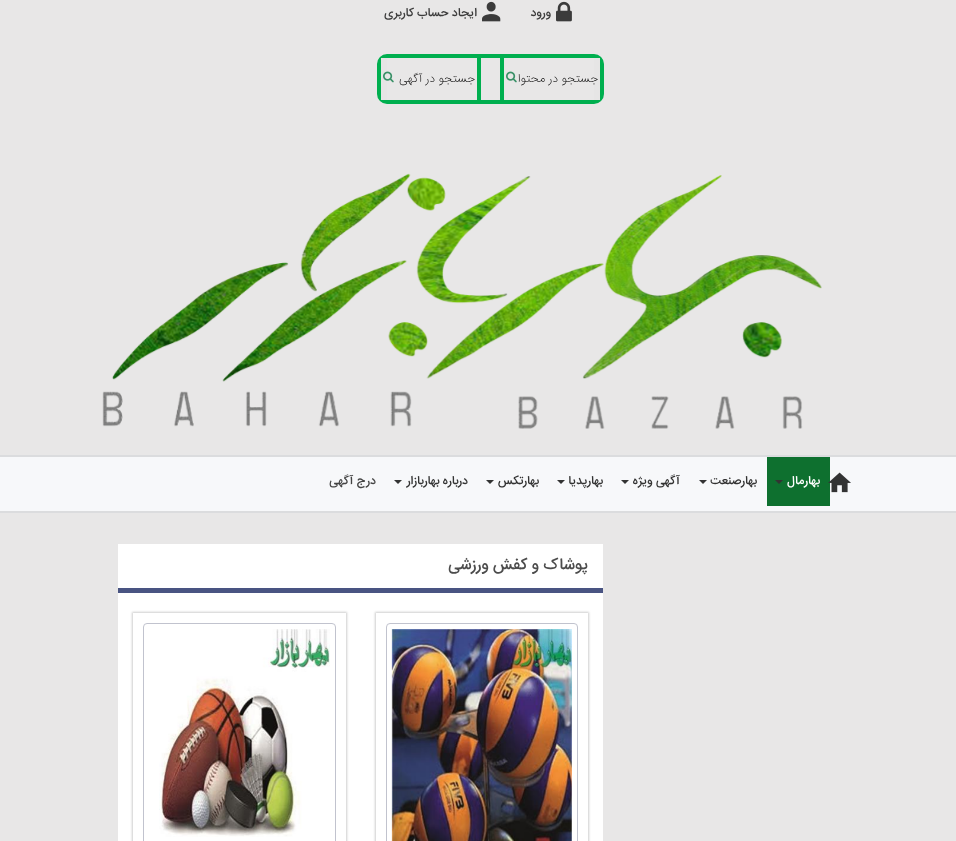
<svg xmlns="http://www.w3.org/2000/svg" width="956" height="841">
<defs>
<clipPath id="clip1"><path d="M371 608h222v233h-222zm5 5h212v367h-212z" clip-rule="evenodd"/></clipPath>
<clipPath id="clip2"><path d="M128 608h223v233h-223zm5 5h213v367h-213z" clip-rule="evenodd"/></clipPath>
</defs>
<rect width="100%" height="100%" fill="#e8e7e7"/>
<image x="556" y="1" width="16" height="21" href="media/1.png"/>
<text x="551" y="16" style="font-family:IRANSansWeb;font-size:12px;font-weight:500;direction:rtl;fill:#3b3b3b">ورود</text>
<image x="482" y="1" width="19" height="21" href="media/2.png"/>
<text x="477" y="16" style="font-family:IRANSansWeb;font-size:12px;font-weight:500;direction:rtl;fill:#3b3b3b">ایجاد حساب کاربری</text>
<rect x="379" y="56" width="223" height="46" rx="8" fill="none" stroke="#00af4f" stroke-width="4"/>
<rect x="594" y="58" width="6" height="42" fill="#e6e5e5"/>
<rect x="500" y="58" width="4" height="42" fill="#00af4f"/>
<text x="598" y="82" style="font-family:IRANSansWeb;font-size:12px;font-weight:200;direction:rtl;fill:#000">جستجو در محتوا</text>
<image x="506" y="71" width="11" height="12" href="media/3.png"/>
<rect x="381" y="58" width="6" height="42" fill="#e6e5e5"/>
<rect x="477" y="58" width="4" height="42" fill="#00af4f"/>
<text x="475" y="82" style="font-family:IRANSansWeb;font-size:12px;font-weight:200;direction:rtl;fill:#000">جستجو در آگهی</text>
<image x="383" y="71" width="11" height="12" href="media/3.png"/>
<image x="102" y="173" width="720" height="256" href="media/4.png"/>
<rect y="457" width="956" height="54" fill="#f7f8fa"/>
<rect y="455" width="956" height="2" fill="#dbdcde"/>
<rect y="511" width="956" height="2" fill="#dbdcde"/>
<rect x="767" y="457" width="63" height="49" fill="#0e702f"/>
<image x="828" y="472" width="23" height="21" href="media/5.png"/>
<text x="820" y="484" style="font-family:IRANSansWeb;font-size:12px;font-weight:500;direction:rtl;fill:#fff">بهارمال</text>
<path d="M775 480h8l-4 4z" fill="#333"/>
<text x="757" y="484" style="font-family:IRANSansWeb;font-size:12px;font-weight:500;direction:rtl;fill:#333">بهارصنعت</text>
<path d="M699 480h8l-4 4z" fill="#333"/>
<text x="680" y="484" style="font-family:IRANSansWeb;font-size:12px;font-weight:500;direction:rtl;fill:#333">آگهی ویژه</text>
<path d="M621 480h8l-4 4z" fill="#333"/>
<text x="603" y="484" style="font-family:IRANSansWeb;font-size:12px;font-weight:500;direction:rtl;fill:#333">بهارپدیا</text>
<path d="M557 480h8l-4 4z" fill="#333"/>
<text x="539" y="484" style="font-family:IRANSansWeb;font-size:12px;font-weight:500;direction:rtl;fill:#333">بهارتکس</text>
<path d="M486 480h8l-4 4z" fill="#333"/>
<text x="468" y="484" style="font-family:IRANSansWeb;font-size:12px;font-weight:500;direction:rtl;fill:#333">درباره بهاربازار</text>
<path d="M394 480h8l-4 4z" fill="#333"/>
<text x="376" y="484" style="font-family:IRANSansWeb;font-size:12px;font-weight:500;direction:rtl;fill:#444">درج آگهی</text>
<rect x="118" y="544" width="485" height="297" fill="#fff"/>
<rect x="118" y="588" width="485" height="5" fill="#495482"/>
<text x="588" y="569" style="font-family:IRANSansWeb;font-size:16px;font-weight:500;direction:rtl;fill:#4c4c4c">پوشاک و کفش ورزشی</text>
<g clip-path="url(#clip1)">
<rect x="375" y="612" width="214" height="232" fill="#cecece" filter="blur(1px)"/>
</g>
<rect x="386.5" y="623.5" width="191" height="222" rx="3.5" fill="none" stroke="#c1c3ce"/>
<image x="391" y="629" width="181" height="212" href="media/6.png"/>
<g clip-path="url(#clip2)">
<rect x="132" y="612" width="215" height="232" fill="#cecece" filter="blur(1px)"/>
</g>
<rect x="143.5" y="623.5" width="192" height="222" rx="3.5" fill="none" stroke="#c1c3ce"/>
<image x="159" y="629" width="171" height="208" href="media/7.png"/>
</svg>
